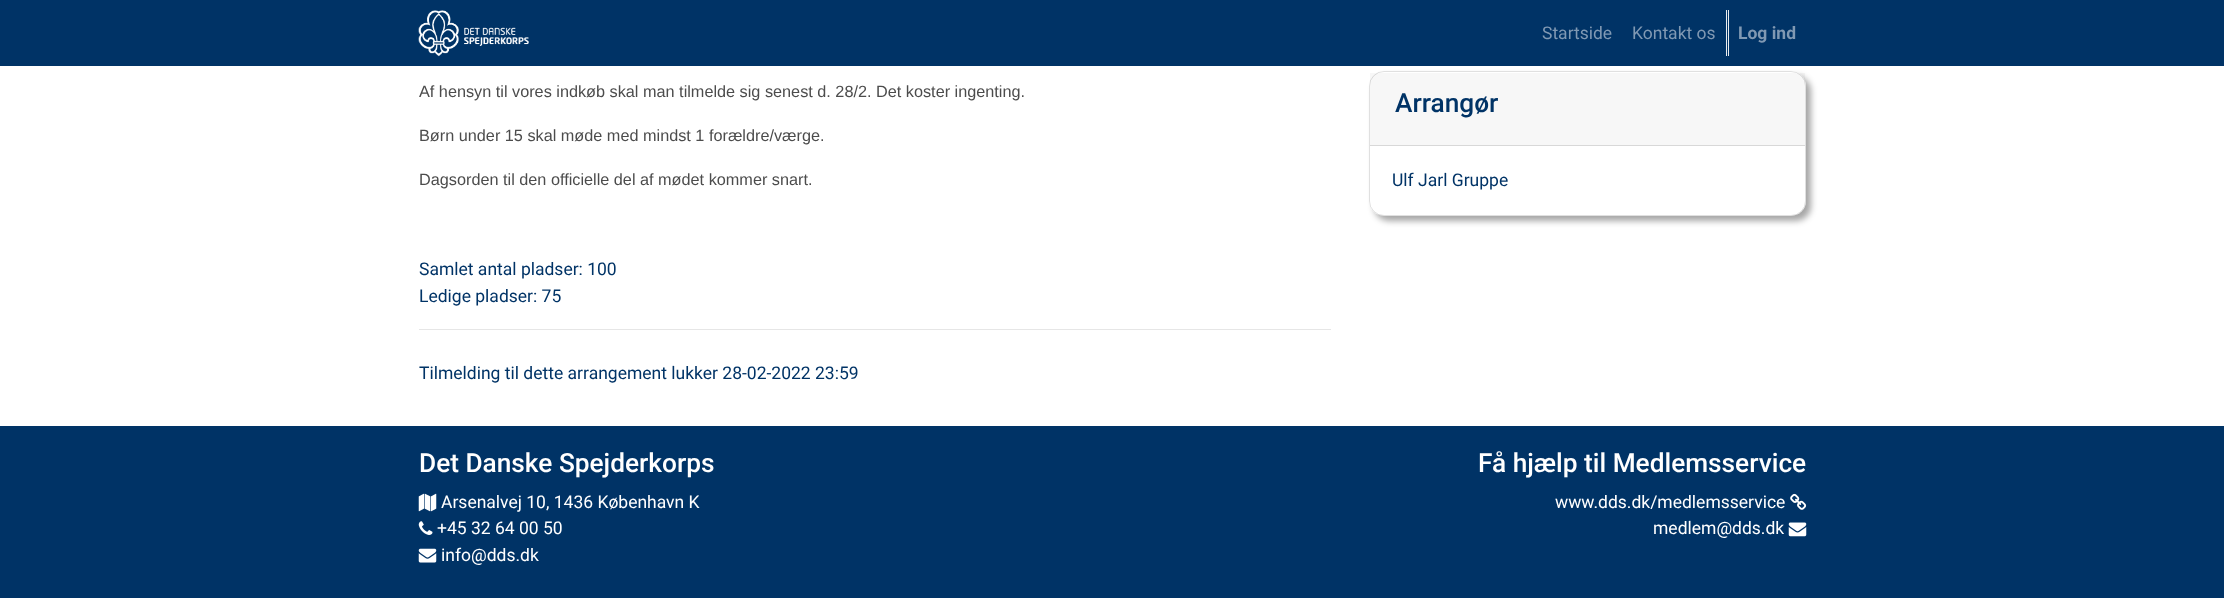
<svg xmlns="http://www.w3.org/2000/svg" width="2224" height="598">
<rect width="100%" height="100%" fill="#fff"/>
<rect width="2224" height="66" fill="#036"/>
<image x="418" y="10" width="111" height="47" href="media/1.png"/>
<text x="1542" y="39" style="font-family:Roboto;font-size:17.5px;fill:#8099b3">Startside</text>
<text x="1632" y="39" style="font-family:Roboto;font-size:17.5px;fill:#8099b3">Kontakt os</text>
<rect x="1726" y="10" width="1" height="46" fill="#e9ecef"/>
<rect x="1728" y="10" width="1" height="46" fill="#e9ecef"/>
<text x="1738" y="39" style="font-family:Roboto;font-size:17.5px;font-weight:bold;fill:#8099b3">Log ind</text>
<text x="419" y="97" style="font-family:Liberation Sans;font-size:16.25px;fill:#4c4c4c">Af hensyn til vores indkøb skal man tilmelde sig senest d. 28/2. Det koster ingenting.</text>
<text x="419" y="141" style="font-family:Liberation Sans;font-size:16.25px;fill:#4c4c4c">Børn under 15 skal møde med mindst 1 forældre/værge.</text>
<text x="419" y="185" style="font-family:Liberation Sans;font-size:16.25px;fill:#4c4c4c">Dagsorden til den officielle del af mødet kommer snart.</text>
<text x="419" y="275" style="font-family:Roboto;font-size:17.5px;fill:#036">Samlet antal pladser: 100</text>
<text x="419" y="302" style="font-family:Roboto;font-size:17.5px;fill:#036">Ledige pladser: 75</text>
<rect x="419" y="329" width="912" height="1" fill="#e6e6e6"/>
<text x="419" y="379" style="font-family:Roboto;font-size:17.5px;fill:#036">Tilmelding til dette arrangement lukker 28-02-2022 23:59</text>
<rect x="1374" y="76" width="437" height="145" rx="15" fill="#00000059" filter="blur(3px)"/>
<rect x="1369" y="71" width="437" height="145" rx="15" fill="#fff"/>
<rect x="1369.5" y="71.5" width="436" height="144" rx="14.5" fill="none" stroke="#0000001f"/>
<rect x="1370" y="73" width="435" height="72" fill="#00000008"/>
<rect x="1370" y="145" width="435" height="1" fill="#d8d8d8"/>
<text x="1395" y="112" style="font-family:Roboto;font-size:26.25px;font-weight:500;fill:#036">Arrangør</text>
<text x="1392" y="186" style="font-family:Roboto;font-size:17.5px;fill:#036">Ulf Jarl Gruppe</text>
<rect y="426" width="2224" height="172" fill="#036"/>
<text x="419" y="472" style="font-family:Roboto;font-size:26.25px;font-weight:500;fill:#fff">Det Danske Spejderkorps</text>
<image x="418" y="493" width="19" height="19" href="media/2.png"/>
<text x="441" y="508" style="font-family:Roboto;font-size:17.5px;fill:#fff">Arsenalvej 10, 1436 København K</text>
<image x="418" y="521" width="15" height="14" href="media/3.png"/>
<text x="437" y="534" style="font-family:Roboto;font-size:17.5px;fill:#fff">+45 32 64 00 50</text>
<image x="418" y="548" width="19" height="15" href="media/4.png"/>
<text x="441" y="561" style="font-family:Roboto;font-size:17.5px;fill:#fff">info@dds.dk</text>
<text x="1478" y="472" style="font-family:Roboto;font-size:26.25px;font-weight:500;fill:#fff">Få hjælp til Medlemsservice</text>
<text x="1555" y="508" style="font-family:Roboto;font-size:17.5px;fill:#fff">www.dds.dk/medlemsservice</text>
<image x="1790" y="493" width="17" height="17" href="media/5.png"/>
<text x="1653" y="534" style="font-family:Roboto;font-size:17.5px;fill:#fff">medlem@dds.dk</text>
<image x="1788" y="522" width="19" height="15" href="media/6.png"/>
</svg>
